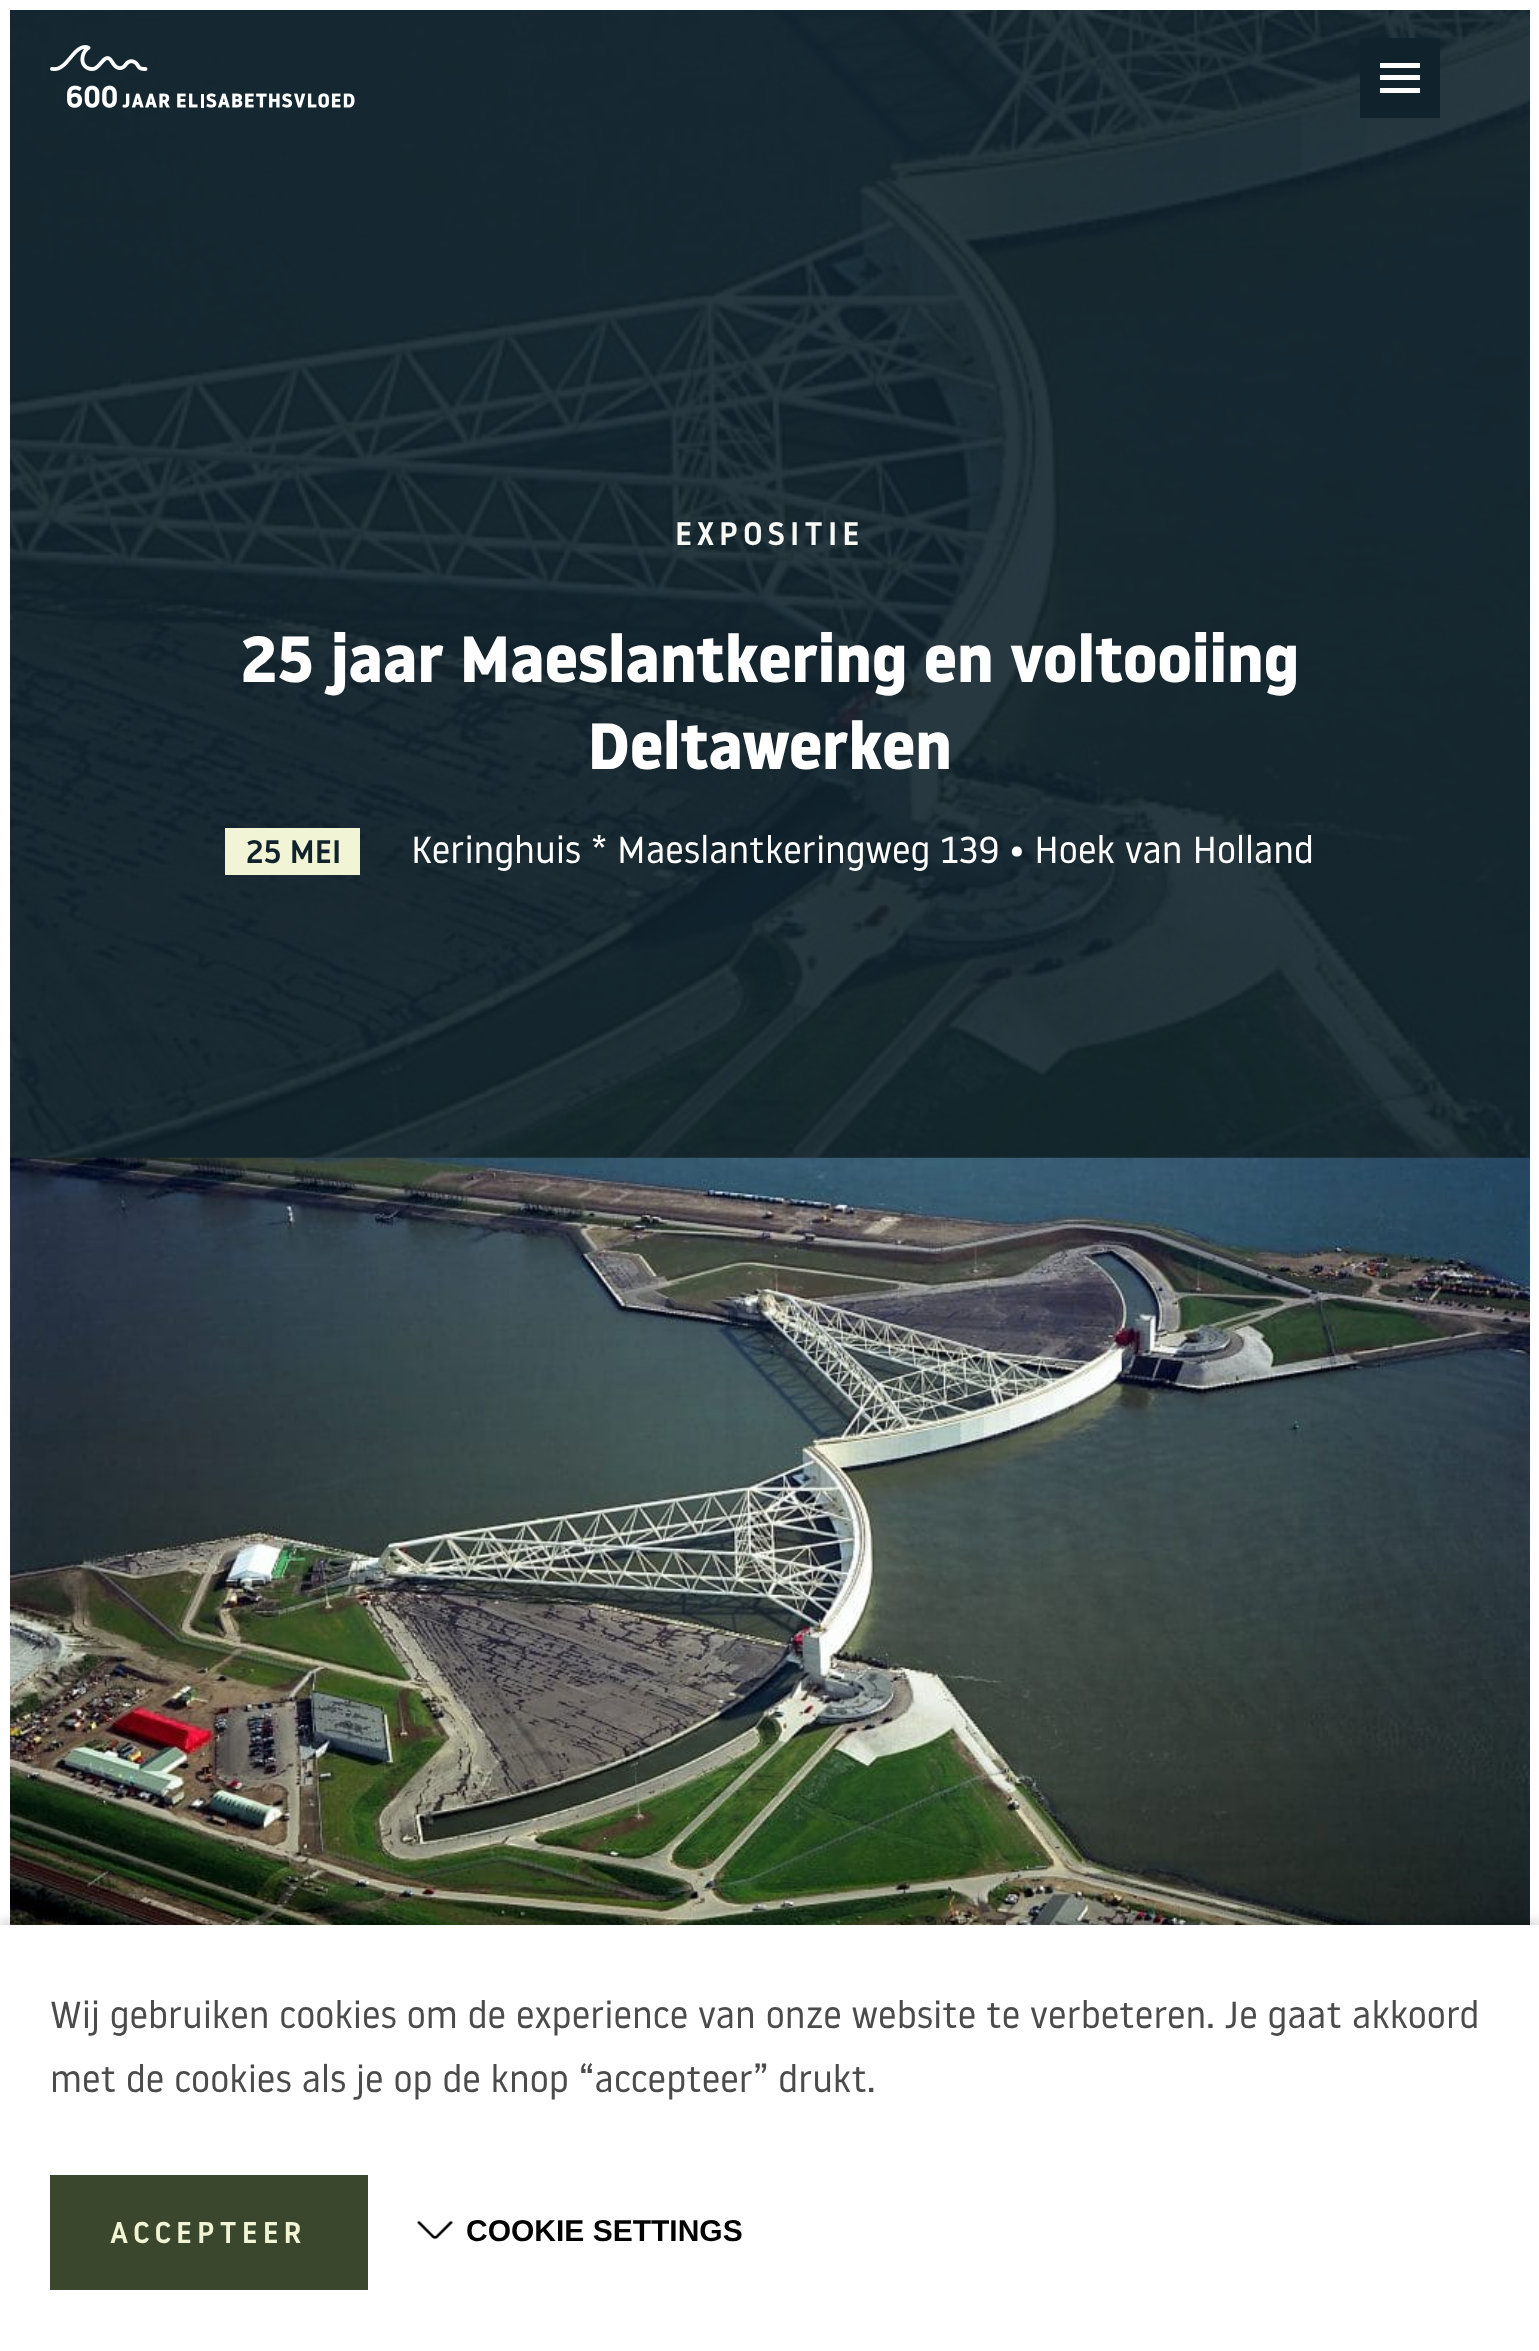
<svg xmlns="http://www.w3.org/2000/svg" width="1539" height="2351">
<rect width="100%" height="100%" fill="#fff"/>
<image x="10" y="10" width="1520" height="1148" href="media/2.png"/>
<image x="50" y="45" width="305" height="63" href="media/1.png"/>
<rect x="1360" y="38" width="80" height="80" fill="#10222c"/>
<rect x="1380" y="75" width="40" height="5" fill="#fff"/>
<rect x="1380" y="63" width="40" height="5" fill="#fff"/>
<rect x="1380" y="88" width="40" height="5" fill="#fff"/>
<text x="675" y="545" style="font-family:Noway;font-size:32.5px;font-weight:500;letter-spacing:5px;fill:#f7f9f4">EXPOSITIE</text>
<text x="241" y="682" style="font-family:Noway;font-size:65px;font-weight:bold;fill:#fff">25 jaar Maeslantkering en voltooiing</text>
<text x="588" y="769" style="font-family:Noway;font-size:65px;font-weight:bold;fill:#fff">Deltawerken</text>
<rect x="225" y="828" width="135" height="47" fill="#f1f5d5"/>
<text x="246" y="863" style="font-family:Noway;font-size:32.5px;font-weight:500;fill:#10222c">25 MEI</text>
<text x="411" y="863" style="font-family:Noway;font-size:37.5px;fill:#fff">Keringhuis * Maeslantkeringweg 139 • Hoek van Holland</text>
<image x="10" y="1157" width="1520" height="768" href="media/3.png"/>
<rect y="1920" width="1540" height="428" fill="#00000026" filter="blur(5px)"/>
<rect y="1925" width="1539" height="426" fill="#fff"/>
<text x="50" y="2028" style="font-family:Noway;font-size:37.5px;fill:#4b4b4b">Wij gebruiken cookies om de experience van onze website te verbeteren. Je gaat akkoord</text>
<text x="50" y="2092" style="font-family:Noway;font-size:37.5px;fill:#4b4b4b">met de cookies als je op de knop “accepteer” drukt.</text>
<rect x="50" y="2175" width="318" height="115" fill="#3a472d"/>
<text x="110" y="2243" style="font-family:Noway;font-size:30px;font-weight:500;letter-spacing:5px;fill:#f1f5d5">ACCEPTEER</text>
<image x="417" y="2221" width="36" height="18" href="media/4.png"/>
<text x="466" y="2241" style="font-family:Liberation Sans;font-size:30px;font-weight:bold;fill:#000">COOKIE SETTINGS</text>
</svg>
